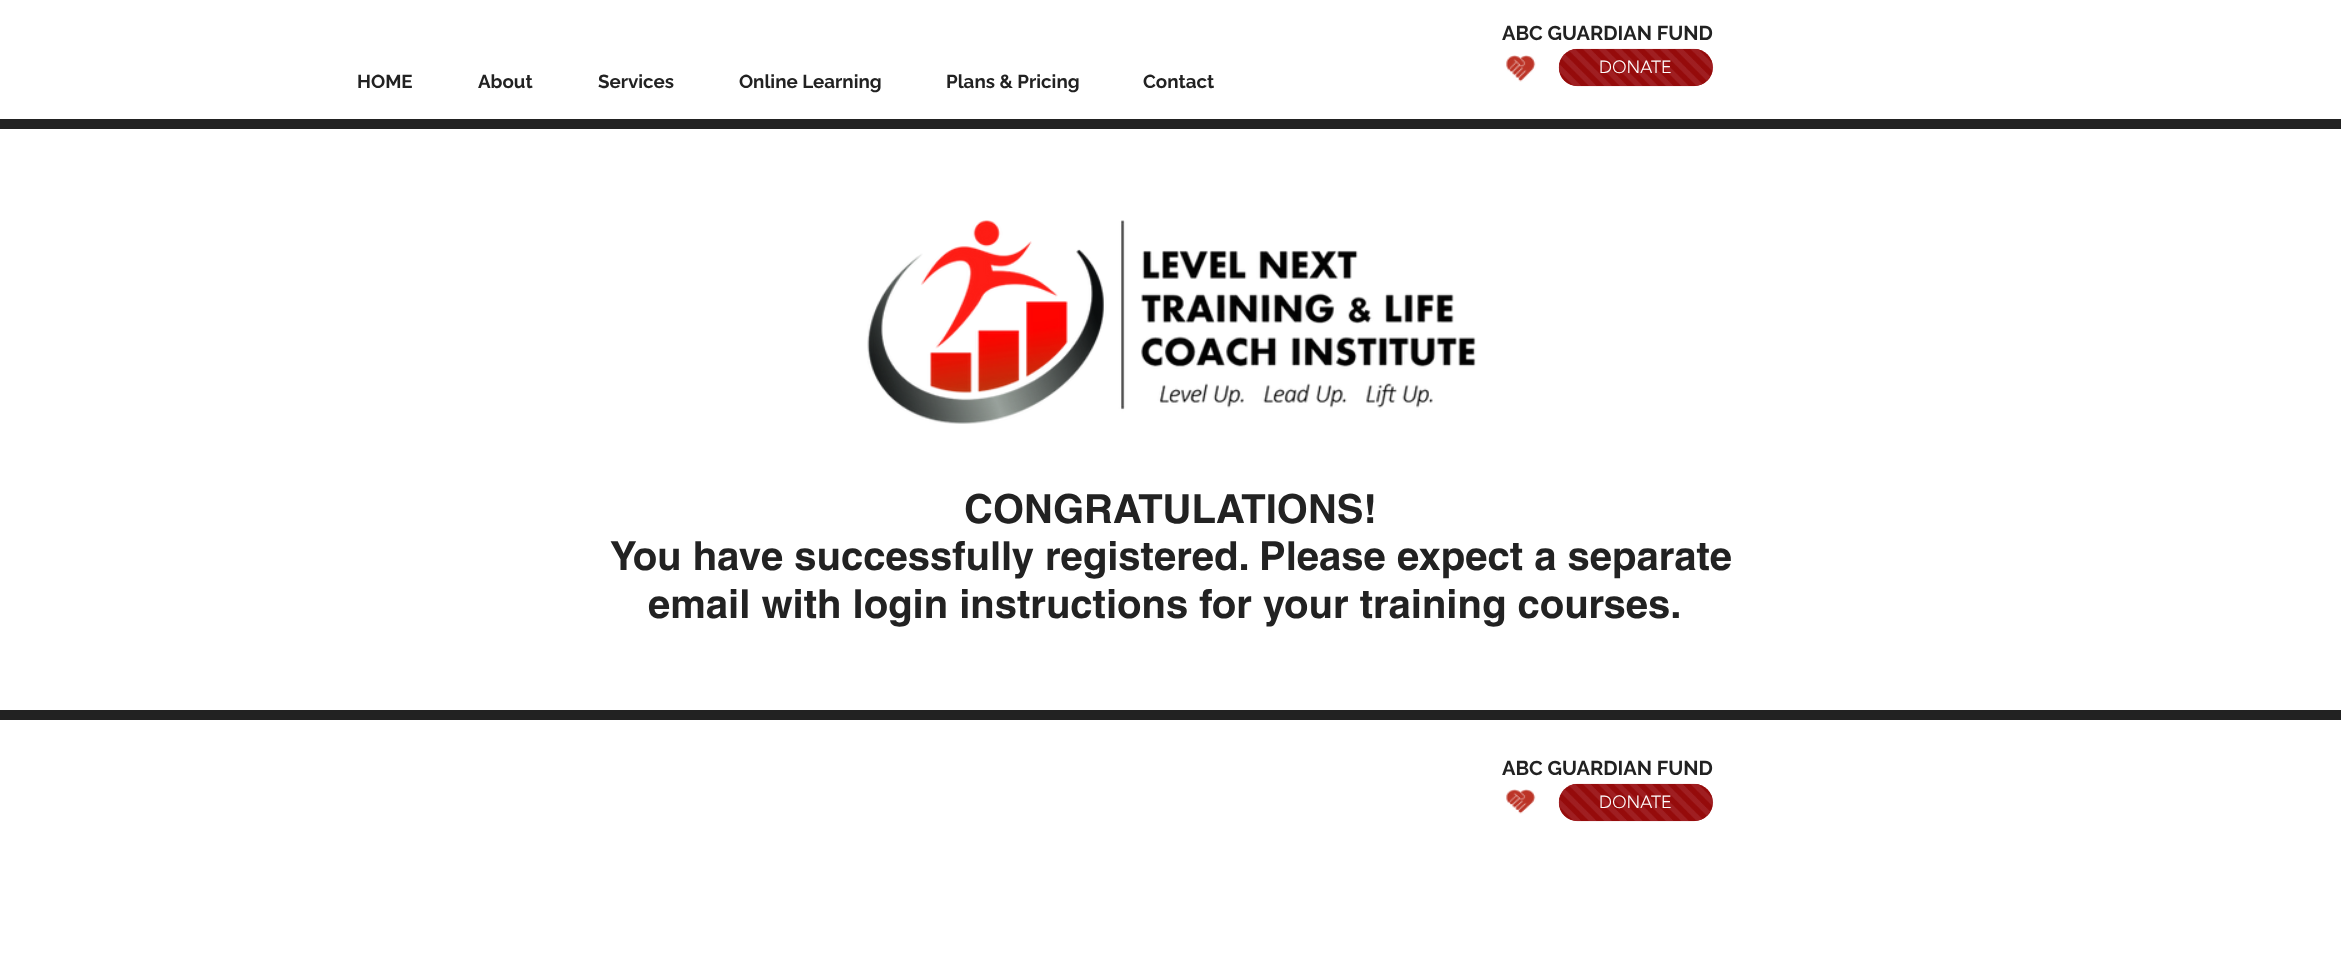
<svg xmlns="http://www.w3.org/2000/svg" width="2341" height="976">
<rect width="100%" height="100%" fill="#fff"/>
<text x="1502" y="40" style="font-family:Raleway;font-size:20px;font-weight:bold;fill:#222">ABC GUARDIAN FUND</text>
<image x="1506" y="55" width="30" height="27" href="media/1.png"/>
<rect x="1559" y="49" width="154" height="37" rx="18.5" fill="#950b0b"/>
<image x="1558" y="48" width="155" height="39" href="media/2.png"/>
<text x="1599" y="73" style="font-family:'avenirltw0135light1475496';font-size:17.5px;font-weight:300;fill:#fff">DONATE</text>
<text x="357" y="88" style="font-family:Raleway;font-size:18.75px;font-weight:bold;fill:#222">HOME</text>
<text x="478" y="88" style="font-family:Raleway;font-size:18.75px;font-weight:bold;fill:#222">About</text>
<text x="598" y="88" style="font-family:Raleway;font-size:18.75px;font-weight:bold;fill:#222">Services</text>
<text x="739" y="88" style="font-family:Raleway;font-size:18.75px;font-weight:bold;fill:#222">Online Learning</text>
<text x="946" y="88" style="font-family:Raleway;font-size:18.75px;font-weight:bold;fill:#222">Plans &amp; Pricing</text>
<text x="1143" y="88" style="font-family:Raleway;font-size:18.75px;font-weight:bold;fill:#222">Contact</text>
<rect y="119" width="2341" height="10" fill="#222"/>
<image x="867" y="220" width="609" height="204" href="media/3.png"/>
<text x="964" y="523" style="font-family:helvetica;font-size:40px;font-weight:bold;fill:#222">CONGRATULATIONS!</text>
<text x="610" y="570" style="font-family:helvetica;font-size:40px;font-weight:bold;fill:#222">You have successfully registered. Please expect a separate</text>
<text x="648" y="618" style="font-family:helvetica;font-size:40px;font-weight:bold;fill:#222">email with login instructions for your training courses.</text>
<rect y="710" width="2341" height="10" fill="#222"/>
<text x="1502" y="775" style="font-family:Raleway;font-size:20px;font-weight:bold;fill:#222">ABC GUARDIAN FUND</text>
<image x="1506" y="789" width="30" height="25" href="media/4.png"/>
<rect x="1559" y="784" width="154" height="37" rx="18.5" fill="#950b0b"/>
<image x="1558" y="783" width="155" height="39" href="media/2.png"/>
<text x="1599" y="808" style="font-family:'avenirltw0135light1475496';font-size:17.5px;font-weight:300;fill:#fff">DONATE</text>
</svg>
